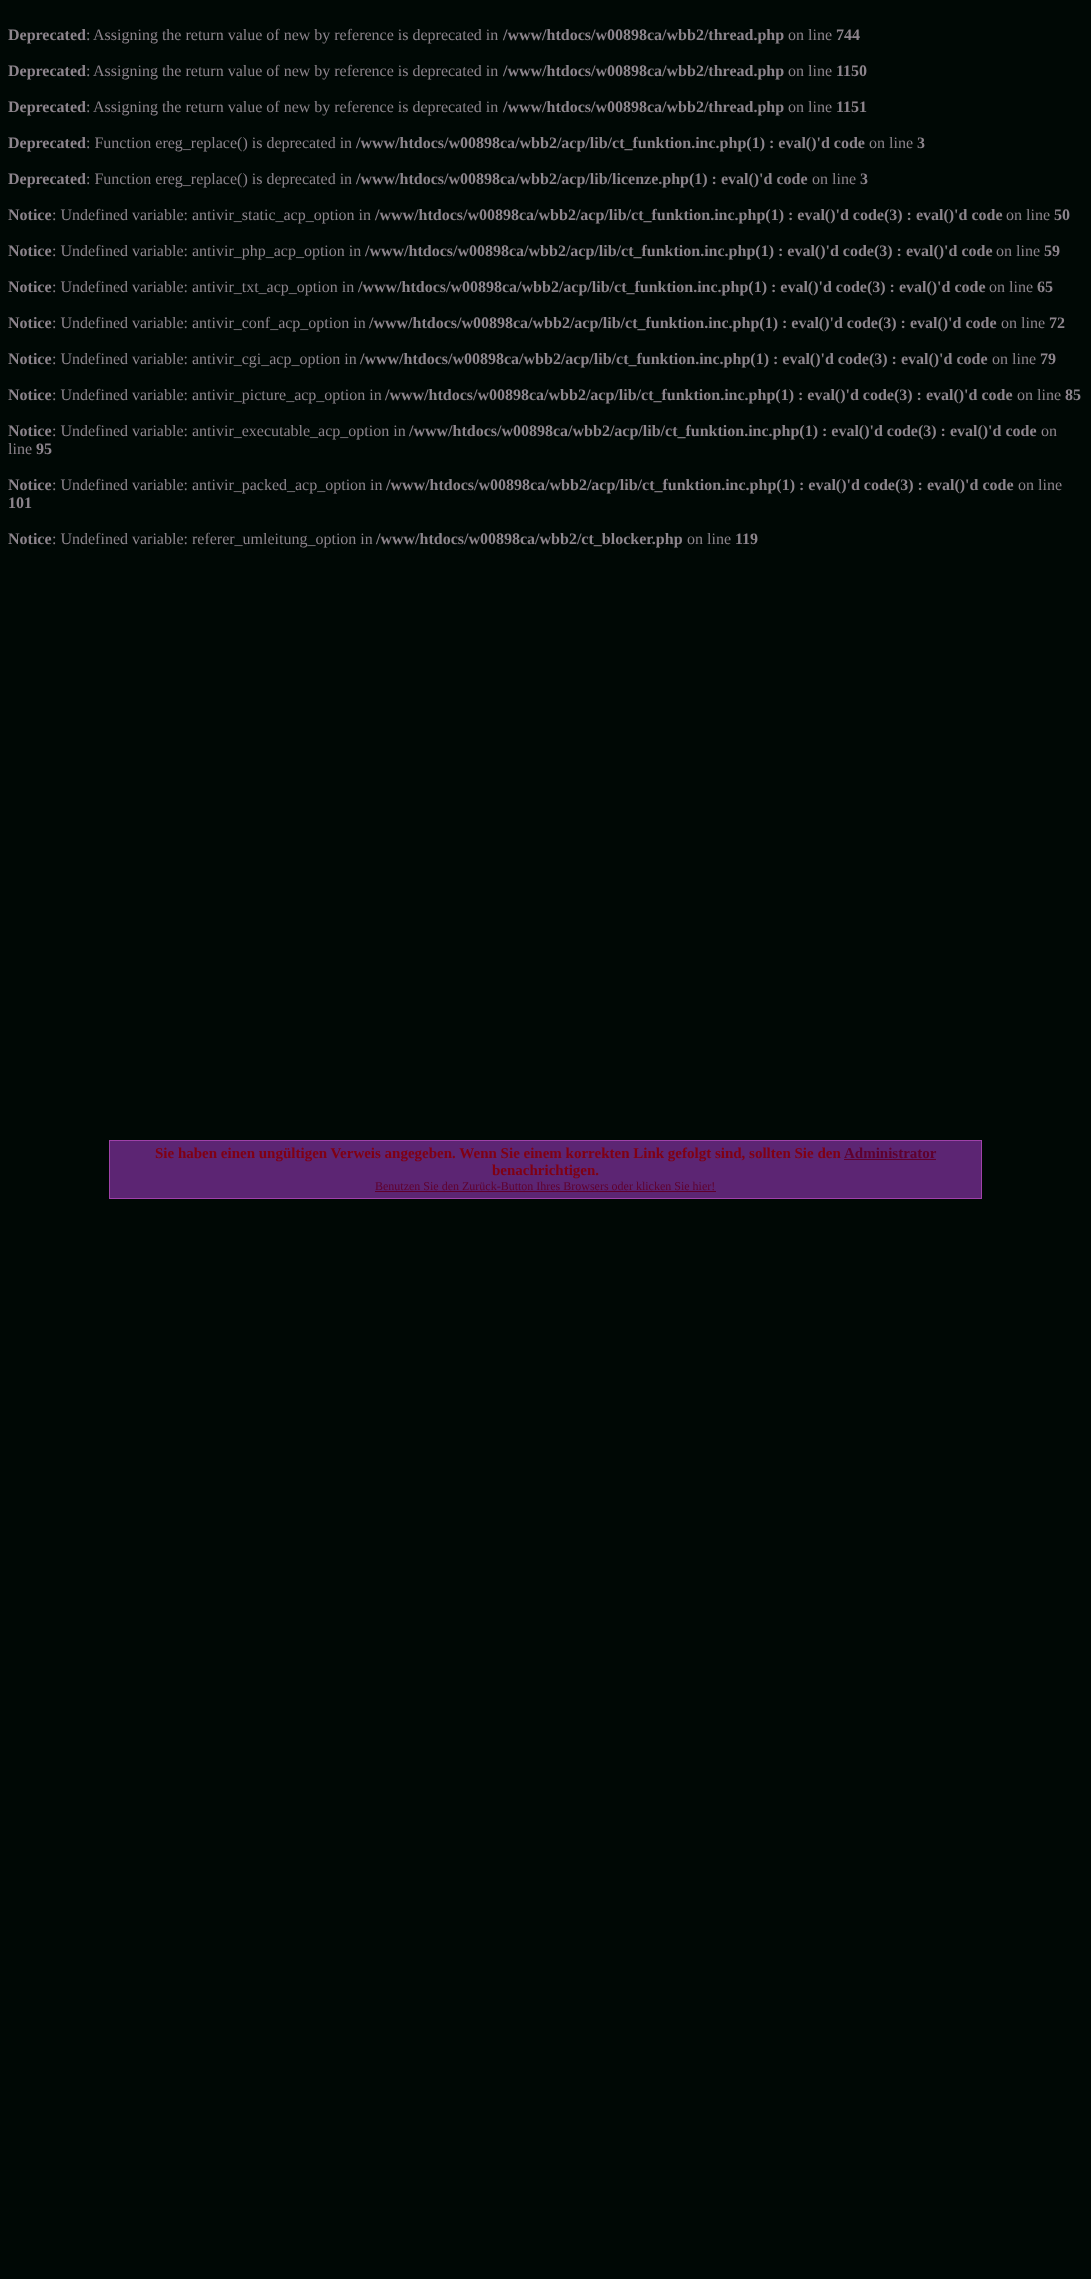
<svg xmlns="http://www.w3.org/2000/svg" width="1091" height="2279">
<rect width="100%" height="100%" fill="#000805"/>
<text x="8" y="40" style="font-family:Liberation Serif;font-size:16px;font-weight:bold;fill:#8c848c">Deprecated</text>
<text x="86" y="40" style="font-family:Liberation Serif;font-size:16px;fill:#8c848c">:</text>
<text x="93" y="40" style="font-family:Liberation Serif;font-size:16px;fill:#8c848c">Assigning the return value of new by reference is deprecated in</text>
<text x="503" y="40" style="font-family:Liberation Serif;font-size:16px;font-weight:bold;fill:#8c848c">/www/htdocs/w00898ca/wbb2/thread.php</text>
<text x="788" y="40" style="font-family:Liberation Serif;font-size:16px;fill:#8c848c">on line</text>
<text x="836" y="40" style="font-family:Liberation Serif;font-size:16px;font-weight:bold;fill:#8c848c">744</text>
<text x="8" y="76" style="font-family:Liberation Serif;font-size:16px;font-weight:bold;fill:#8c848c">Deprecated</text>
<text x="86" y="76" style="font-family:Liberation Serif;font-size:16px;fill:#8c848c">:</text>
<text x="93" y="76" style="font-family:Liberation Serif;font-size:16px;fill:#8c848c">Assigning the return value of new by reference is deprecated in</text>
<text x="503" y="76" style="font-family:Liberation Serif;font-size:16px;font-weight:bold;fill:#8c848c">/www/htdocs/w00898ca/wbb2/thread.php</text>
<text x="788" y="76" style="font-family:Liberation Serif;font-size:16px;fill:#8c848c">on line</text>
<text x="836" y="76" style="font-family:Liberation Serif;font-size:16px;font-weight:bold;fill:#8c848c">1150</text>
<text x="8" y="112" style="font-family:Liberation Serif;font-size:16px;font-weight:bold;fill:#8c848c">Deprecated</text>
<text x="86" y="112" style="font-family:Liberation Serif;font-size:16px;fill:#8c848c">:</text>
<text x="93" y="112" style="font-family:Liberation Serif;font-size:16px;fill:#8c848c">Assigning the return value of new by reference is deprecated in</text>
<text x="503" y="112" style="font-family:Liberation Serif;font-size:16px;font-weight:bold;fill:#8c848c">/www/htdocs/w00898ca/wbb2/thread.php</text>
<text x="788" y="112" style="font-family:Liberation Serif;font-size:16px;fill:#8c848c">on line</text>
<text x="836" y="112" style="font-family:Liberation Serif;font-size:16px;font-weight:bold;fill:#8c848c">1151</text>
<text x="8" y="148" style="font-family:Liberation Serif;font-size:16px;font-weight:bold;fill:#8c848c">Deprecated</text>
<text x="86" y="148" style="font-family:Liberation Serif;font-size:16px;fill:#8c848c">: Function ereg_replace() is deprecated in</text>
<text x="356" y="148" style="font-family:Liberation Serif;font-size:16px;font-weight:bold;fill:#8c848c">/www/htdocs/w00898ca/wbb2/acp/lib/ct_funktion.inc.php(1) : eval()'d code</text>
<text x="869" y="148" style="font-family:Liberation Serif;font-size:16px;fill:#8c848c">on line</text>
<text x="917" y="148" style="font-family:Liberation Serif;font-size:16px;font-weight:bold;fill:#8c848c">3</text>
<text x="8" y="184" style="font-family:Liberation Serif;font-size:16px;font-weight:bold;fill:#8c848c">Deprecated</text>
<text x="86" y="184" style="font-family:Liberation Serif;font-size:16px;fill:#8c848c">: Function ereg_replace() is deprecated in</text>
<text x="356" y="184" style="font-family:Liberation Serif;font-size:16px;font-weight:bold;fill:#8c848c">/www/htdocs/w00898ca/wbb2/acp/lib/licenze.php(1) : eval()'d code</text>
<text x="812" y="184" style="font-family:Liberation Serif;font-size:16px;fill:#8c848c">on line</text>
<text x="860" y="184" style="font-family:Liberation Serif;font-size:16px;font-weight:bold;fill:#8c848c">3</text>
<text x="8" y="220" style="font-family:Liberation Serif;font-size:16px;font-weight:bold;fill:#8c848c">Notice</text>
<text x="52" y="220" style="font-family:Liberation Serif;font-size:16px;fill:#8c848c">: Undefined variable: antivir_static_acp_option in</text>
<text x="375" y="220" style="font-family:Liberation Serif;font-size:16px;font-weight:bold;fill:#8c848c">/www/htdocs/w00898ca/wbb2/acp/lib/ct_funktion.inc.php(1) : eval()'d code(3) : eval()'d code</text>
<text x="1006" y="220" style="font-family:Liberation Serif;font-size:16px;fill:#8c848c">on line</text>
<text x="1054" y="220" style="font-family:Liberation Serif;font-size:16px;font-weight:bold;fill:#8c848c">50</text>
<text x="8" y="256" style="font-family:Liberation Serif;font-size:16px;font-weight:bold;fill:#8c848c">Notice</text>
<text x="52" y="256" style="font-family:Liberation Serif;font-size:16px;fill:#8c848c">: Undefined variable: antivir_php_acp_option in</text>
<text x="365" y="256" style="font-family:Liberation Serif;font-size:16px;font-weight:bold;fill:#8c848c">/www/htdocs/w00898ca/wbb2/acp/lib/ct_funktion.inc.php(1) : eval()'d code(3) : eval()'d code</text>
<text x="996" y="256" style="font-family:Liberation Serif;font-size:16px;fill:#8c848c">on line</text>
<text x="1044" y="256" style="font-family:Liberation Serif;font-size:16px;font-weight:bold;fill:#8c848c">59</text>
<text x="8" y="292" style="font-family:Liberation Serif;font-size:16px;font-weight:bold;fill:#8c848c">Notice</text>
<text x="52" y="292" style="font-family:Liberation Serif;font-size:16px;fill:#8c848c">: Undefined variable: antivir_txt_acp_option in</text>
<text x="358" y="292" style="font-family:Liberation Serif;font-size:16px;font-weight:bold;fill:#8c848c">/www/htdocs/w00898ca/wbb2/acp/lib/ct_funktion.inc.php(1) : eval()'d code(3) : eval()'d code</text>
<text x="989" y="292" style="font-family:Liberation Serif;font-size:16px;fill:#8c848c">on line</text>
<text x="1037" y="292" style="font-family:Liberation Serif;font-size:16px;font-weight:bold;fill:#8c848c">65</text>
<text x="8" y="328" style="font-family:Liberation Serif;font-size:16px;font-weight:bold;fill:#8c848c">Notice</text>
<text x="52" y="328" style="font-family:Liberation Serif;font-size:16px;fill:#8c848c">: Undefined variable: antivir_conf_acp_option in</text>
<text x="369" y="328" style="font-family:Liberation Serif;font-size:16px;font-weight:bold;fill:#8c848c">/www/htdocs/w00898ca/wbb2/acp/lib/ct_funktion.inc.php(1) : eval()'d code(3) : eval()'d code</text>
<text x="1001" y="328" style="font-family:Liberation Serif;font-size:16px;fill:#8c848c">on line</text>
<text x="1049" y="328" style="font-family:Liberation Serif;font-size:16px;font-weight:bold;fill:#8c848c">72</text>
<text x="8" y="364" style="font-family:Liberation Serif;font-size:16px;font-weight:bold;fill:#8c848c">Notice</text>
<text x="52" y="364" style="font-family:Liberation Serif;font-size:16px;fill:#8c848c">: Undefined variable: antivir_cgi_acp_option in</text>
<text x="360" y="364" style="font-family:Liberation Serif;font-size:16px;font-weight:bold;fill:#8c848c">/www/htdocs/w00898ca/wbb2/acp/lib/ct_funktion.inc.php(1) : eval()'d code(3) : eval()'d code</text>
<text x="992" y="364" style="font-family:Liberation Serif;font-size:16px;fill:#8c848c">on line</text>
<text x="1040" y="364" style="font-family:Liberation Serif;font-size:16px;font-weight:bold;fill:#8c848c">79</text>
<text x="8" y="400" style="font-family:Liberation Serif;font-size:16px;font-weight:bold;fill:#8c848c">Notice</text>
<text x="52" y="400" style="font-family:Liberation Serif;font-size:16px;fill:#8c848c">: Undefined variable: antivir_picture_acp_option in</text>
<text x="385" y="400" style="font-family:Liberation Serif;font-size:16px;font-weight:bold;fill:#8c848c">/www/htdocs/w00898ca/wbb2/acp/lib/ct_funktion.inc.php(1) : eval()'d code(3) : eval()'d code</text>
<text x="1017" y="400" style="font-family:Liberation Serif;font-size:16px;fill:#8c848c">on line</text>
<text x="1065" y="400" style="font-family:Liberation Serif;font-size:16px;font-weight:bold;fill:#8c848c">85</text>
<text x="8" y="436" style="font-family:Liberation Serif;font-size:16px;font-weight:bold;fill:#8c848c">Notice</text>
<text x="52" y="436" style="font-family:Liberation Serif;font-size:16px;fill:#8c848c">: Undefined variable: antivir_executable_acp_option in</text>
<text x="409" y="436" style="font-family:Liberation Serif;font-size:16px;font-weight:bold;fill:#8c848c">/www/htdocs/w00898ca/wbb2/acp/lib/ct_funktion.inc.php(1) : eval()'d code(3) : eval()'d code</text>
<text x="1041" y="436" style="font-family:Liberation Serif;font-size:16px;fill:#8c848c">on</text>
<text x="8" y="454" style="font-family:Liberation Serif;font-size:16px;fill:#8c848c">line</text>
<text x="36" y="454" style="font-family:Liberation Serif;font-size:16px;font-weight:bold;fill:#8c848c">95</text>
<text x="8" y="490" style="font-family:Liberation Serif;font-size:16px;font-weight:bold;fill:#8c848c">Notice</text>
<text x="52" y="490" style="font-family:Liberation Serif;font-size:16px;fill:#8c848c">: Undefined variable: antivir_packed_acp_option in</text>
<text x="386" y="490" style="font-family:Liberation Serif;font-size:16px;font-weight:bold;fill:#8c848c">/www/htdocs/w00898ca/wbb2/acp/lib/ct_funktion.inc.php(1) : eval()'d code(3) : eval()'d code</text>
<text x="1018" y="490" style="font-family:Liberation Serif;font-size:16px;fill:#8c848c">on line</text>
<text x="8" y="508" style="font-family:Liberation Serif;font-size:16px;font-weight:bold;fill:#8c848c">101</text>
<text x="8" y="544" style="font-family:Liberation Serif;font-size:16px;font-weight:bold;fill:#8c848c">Notice</text>
<text x="52" y="544" style="font-family:Liberation Serif;font-size:16px;fill:#8c848c">: Undefined variable: referer_umleitung_option in</text>
<text x="376" y="544" style="font-family:Liberation Serif;font-size:16px;font-weight:bold;fill:#8c848c">/www/htdocs/w00898ca/wbb2/ct_blocker.php</text>
<text x="687" y="544" style="font-family:Liberation Serif;font-size:16px;fill:#8c848c">on line</text>
<text x="735" y="544" style="font-family:Liberation Serif;font-size:16px;font-weight:bold;fill:#8c848c">119</text>
<rect x="109" y="1140" width="873" height="59" fill="#9f41a9"/>
<rect x="110" y="1141" width="871" height="57" fill="#5c2573"/>
<text x="155" y="1158" style="font-family:Liberation Serif;font-size:15px;font-weight:bold;fill:#810012">Sie haben einen ungültigen Verweis angegeben. Wenn Sie einem korrekten Link gefolgt sind, sollten Sie den</text>
<text x="844" y="1158" style="font-family:Liberation Serif;font-size:15px;font-weight:bold;fill:#5f002d">Administrator</text>
<rect x="844" y="1159" width="92" height="1" fill="#5f002d"/>
<text x="492" y="1175" style="font-family:Liberation Serif;font-size:15px;font-weight:bold;fill:#810012">benachrichtigen.</text>
<text x="375" y="1190" style="font-family:Liberation Serif;font-size:12px;fill:#5f002d">Benutzen Sie den Zurück-Button Ihres Browsers oder klicken Sie hier!</text>
<rect x="375" y="1191" width="341" height="1" fill="#5f002d"/>
</svg>
